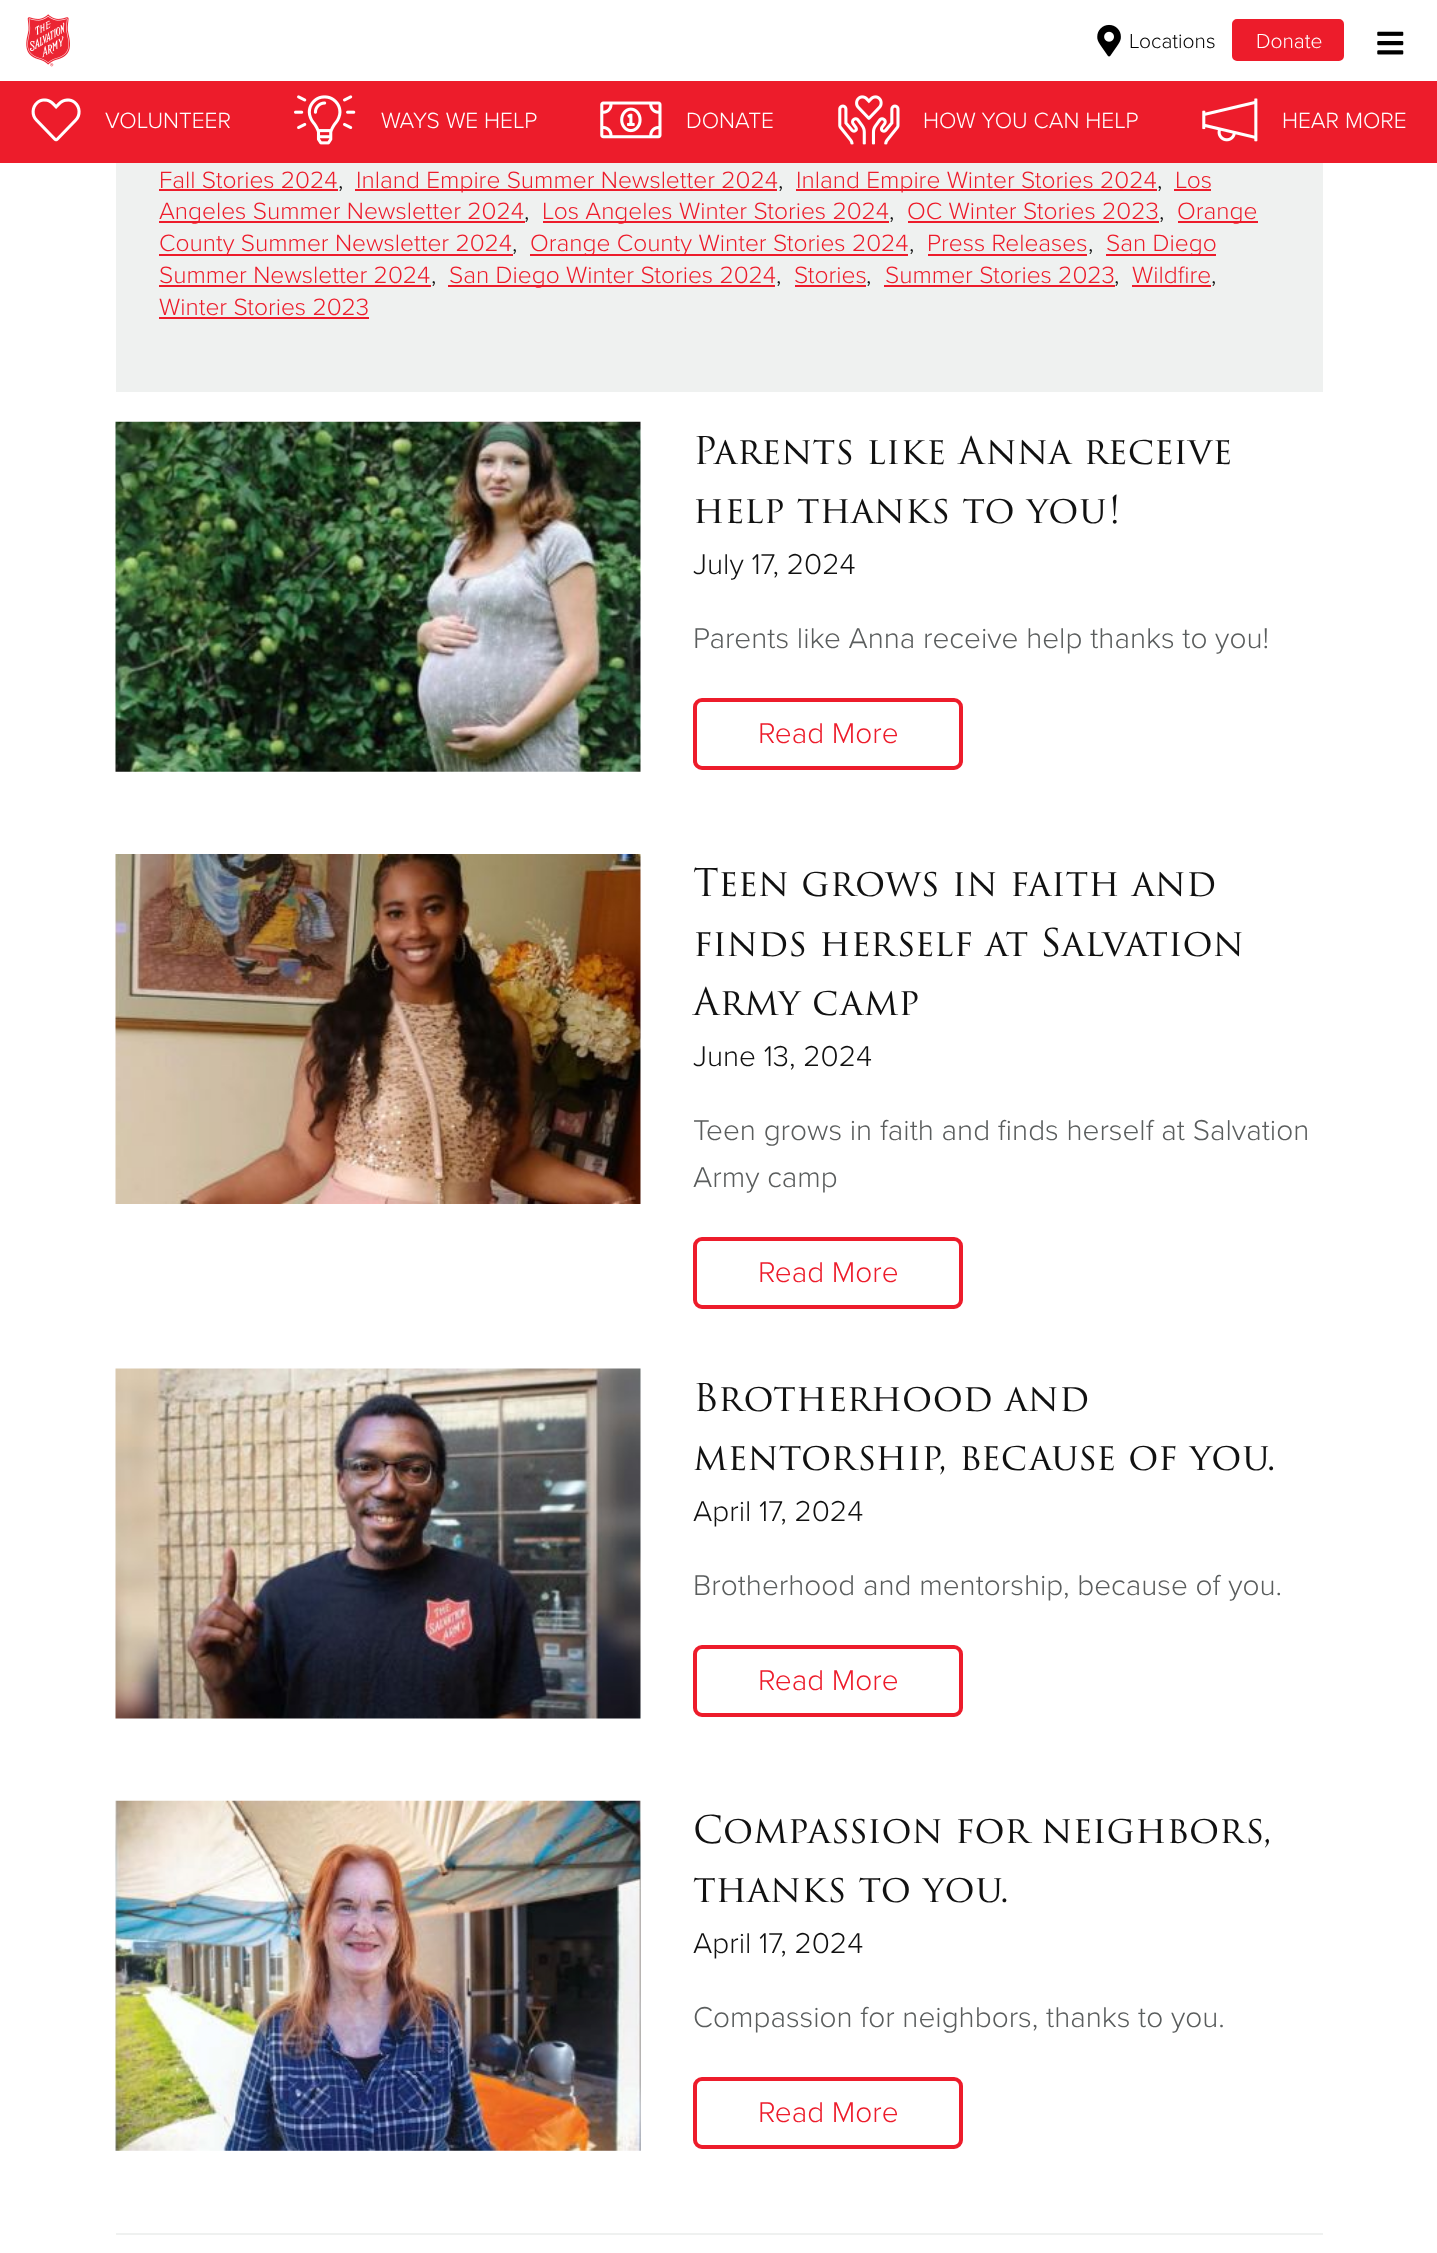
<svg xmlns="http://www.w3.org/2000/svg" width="1437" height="2253">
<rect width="100%" height="100%" fill="#fff"/>
<image x="26" y="14" width="44" height="53" href="media/1.png"/>
<image x="1097" y="24" width="24" height="33" href="media/2.png"/>
<text x="1129" y="48" style="font-family:Proxima Nova;font-size:21px;font-weight:300;fill:#000">Locations</text>
<rect x="1233" y="20" width="110" height="40" rx="4" fill="#ed1c2b" stroke="#ed1c2b" stroke-width="2"/>
<text x="1256" y="48" style="font-family:Proxima Nova;font-size:21px;font-weight:300;fill:#fff">Donate</text>
<image x="1377" y="31" width="27" height="24" href="media/3.png"/>
<rect y="81" width="1437" height="82" fill="#ed1c2b"/>
<image x="31" y="98" width="50" height="44" href="media/4.png"/>
<text x="105" y="128" style="font-family:Proxima Nova;font-size:22.75px;font-weight:300;fill:#fff">VOLUNTEER</text>
<image x="294" y="95" width="62" height="50" href="media/5.png"/>
<text x="381" y="128" style="font-family:Proxima Nova;font-size:22.75px;font-weight:300;fill:#fff">WAYS WE HELP</text>
<image x="600" y="101" width="62" height="38" href="media/6.png"/>
<text x="686" y="128" style="font-family:Proxima Nova;font-size:22.75px;font-weight:300;fill:#fff">DONATE</text>
<image x="838" y="95" width="62" height="50" href="media/7.png"/>
<text x="923" y="128" style="font-family:Proxima Nova;font-size:22.75px;font-weight:300;fill:#fff">HOW YOU CAN HELP</text>
<image x="1202" y="98" width="56" height="44" href="media/8.png"/>
<text x="1282" y="128" style="font-family:Proxima Nova;font-size:22.75px;font-weight:300;fill:#fff">HEAR MORE</text>
<rect x="116" y="163" width="1207" height="229" fill="#eff1f0"/>
<text x="159" y="188" style="font-family:Proxima Nova;font-size:24.5px;font-weight:300;fill:#ed1c2b">Fall Stories 2024</text>
<rect x="159" y="189" width="179" height="2" fill="#ed1c2b"/>
<text x="338" y="188" style="font-family:Proxima Nova;font-size:24.5px;font-weight:300;fill:#111">,</text>
<rect x="355" y="189" width="422" height="2" fill="#ed1c2b"/>
<text x="356" y="188" style="font-family:Proxima Nova;font-size:24.5px;font-weight:300;fill:#ed1c2b">Inland Empire Summer Newsletter 2024</text>
<text x="778" y="188" style="font-family:Proxima Nova;font-size:24.5px;font-weight:300;fill:#111">,</text>
<rect x="796" y="189" width="361" height="2" fill="#ed1c2b"/>
<text x="796" y="188" style="font-family:Proxima Nova;font-size:24.5px;font-weight:300;fill:#ed1c2b">Inland Empire Winter Stories 2024</text>
<text x="1157" y="188" style="font-family:Proxima Nova;font-size:24.5px;font-weight:300;fill:#111">,</text>
<text x="1175" y="188" style="font-family:Proxima Nova;font-size:24.5px;font-weight:300;fill:#ed1c2b">Los</text>
<rect x="1174" y="189" width="37" height="2" fill="#ed1c2b"/>
<rect x="159" y="221" width="366" height="2" fill="#ed1c2b"/>
<text x="159" y="219" style="font-family:Proxima Nova;font-size:24.5px;font-weight:300;fill:#ed1c2b">Angeles Summer Newsletter 2024</text>
<text x="524" y="219" style="font-family:Proxima Nova;font-size:24.5px;font-weight:300;fill:#111">,</text>
<rect x="543" y="221" width="346" height="2" fill="#ed1c2b"/>
<text x="542" y="219" style="font-family:Proxima Nova;font-size:24.5px;font-weight:300;fill:#ed1c2b">Los Angeles Winter Stories 2024</text>
<text x="889" y="219" style="font-family:Proxima Nova;font-size:24.5px;font-weight:300;fill:#111">,</text>
<text x="907" y="219" style="font-family:Proxima Nova;font-size:24.5px;font-weight:300;fill:#ed1c2b">OC Winter Stories 2023</text>
<rect x="908" y="221" width="251" height="2" fill="#ed1c2b"/>
<text x="1159" y="219" style="font-family:Proxima Nova;font-size:24.5px;font-weight:300;fill:#111">,</text>
<rect x="1178" y="221" width="80" height="2" fill="#ed1c2b"/>
<text x="1177" y="219" style="font-family:Proxima Nova;font-size:24.5px;font-weight:300;fill:#ed1c2b">Orange</text>
<rect x="159" y="254" width="354" height="2" fill="#ed1c2b"/>
<text x="159" y="251" style="font-family:Proxima Nova;font-size:24.5px;font-weight:300;fill:#ed1c2b">County Summer Newsletter 2024</text>
<text x="512" y="251" style="font-family:Proxima Nova;font-size:24.5px;font-weight:300;fill:#111">,</text>
<rect x="530" y="254" width="378" height="2" fill="#ed1c2b"/>
<text x="530" y="251" style="font-family:Proxima Nova;font-size:24.5px;font-weight:300;fill:#ed1c2b">Orange County Winter Stories 2024</text>
<text x="909" y="251" style="font-family:Proxima Nova;font-size:24.5px;font-weight:300;fill:#111">,</text>
<text x="927" y="251" style="font-family:Proxima Nova;font-size:24.5px;font-weight:300;fill:#ed1c2b">Press Releases</text>
<rect x="928" y="254" width="159" height="2" fill="#ed1c2b"/>
<text x="1088" y="251" style="font-family:Proxima Nova;font-size:24.5px;font-weight:300;fill:#111">,</text>
<rect x="1106" y="254" width="110" height="2" fill="#ed1c2b"/>
<text x="1106" y="251" style="font-family:Proxima Nova;font-size:24.5px;font-weight:300;fill:#ed1c2b">San Diego</text>
<text x="159" y="283" style="font-family:Proxima Nova;font-size:24.5px;font-weight:300;fill:#ed1c2b">Summer Newsletter 2024</text>
<rect x="159" y="285" width="272" height="2" fill="#ed1c2b"/>
<text x="431" y="283" style="font-family:Proxima Nova;font-size:24.5px;font-weight:300;fill:#111">,</text>
<rect x="448" y="285" width="327" height="2" fill="#ed1c2b"/>
<text x="449" y="283" style="font-family:Proxima Nova;font-size:24.5px;font-weight:300;fill:#ed1c2b">San Diego Winter Stories 2024</text>
<text x="776" y="283" style="font-family:Proxima Nova;font-size:24.5px;font-weight:300;fill:#111">,</text>
<text x="794" y="283" style="font-family:Proxima Nova;font-size:24.5px;font-weight:300;fill:#ed1c2b">Stories</text>
<rect x="795" y="285" width="71" height="2" fill="#ed1c2b"/>
<text x="866" y="283" style="font-family:Proxima Nova;font-size:24.5px;font-weight:300;fill:#111">,</text>
<text x="885" y="283" style="font-family:Proxima Nova;font-size:24.5px;font-weight:300;fill:#ed1c2b">Summer Stories 2023</text>
<rect x="884" y="285" width="231" height="2" fill="#ed1c2b"/>
<text x="1114" y="283" style="font-family:Proxima Nova;font-size:24.5px;font-weight:300;fill:#111">,</text>
<text x="1132" y="283" style="font-family:Proxima Nova;font-size:24.5px;font-weight:300;fill:#ed1c2b">Wildfire</text>
<rect x="1132" y="285" width="79" height="2" fill="#ed1c2b"/>
<text x="1211" y="283" style="font-family:Proxima Nova;font-size:24.5px;font-weight:300;fill:#111">,</text>
<text x="159" y="315" style="font-family:Proxima Nova;font-size:24.5px;font-weight:300;fill:#ed1c2b">Winter Stories 2023</text>
<rect x="159" y="317" width="210" height="2" fill="#ed1c2b"/>
<image x="115" y="421" width="526" height="351" href="media/9.png"/>
<text x="693" y="464" style="font-family:'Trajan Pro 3';font-size:37.25px;fill:#111">Parents like Anna receive</text>
<text x="693" y="523" style="font-family:'Trajan Pro 3';font-size:37.25px;fill:#111">help thanks to you!</text>
<text x="693" y="574" style="font-family:Proxima Nova;font-size:29.75px;font-weight:300;fill:#111">July 17, 2024</text>
<text x="693" y="648" style="font-family:Proxima Nova;font-size:29.75px;font-weight:300;fill:#5a5d5d">Parents like Anna receive help thanks to you!</text>
<rect x="695" y="700" width="266" height="68" rx="7" fill="none" stroke="#ed1c2b" stroke-width="4"/>
<text x="758" y="743" style="font-family:Proxima Nova;font-size:29.75px;font-weight:300;fill:#ed1c2b">Read More</text>
<image x="115" y="854" width="526" height="350" href="media/10.png"/>
<text x="693" y="896" style="font-family:'Trajan Pro 3';font-size:37.25px;fill:#111">Teen grows in faith and</text>
<text x="693" y="956" style="font-family:'Trajan Pro 3';font-size:37.25px;fill:#111">finds herself at Salvation</text>
<text x="693" y="1015" style="font-family:'Trajan Pro 3';font-size:37.25px;fill:#111">Army camp</text>
<text x="693" y="1066" style="font-family:Proxima Nova;font-size:29.75px;font-weight:300;fill:#111">June 13, 2024</text>
<text x="693" y="1140" style="font-family:Proxima Nova;font-size:29.75px;font-weight:300;fill:#5a5d5d">Teen grows in faith and finds herself at Salvation</text>
<text x="693" y="1187" style="font-family:Proxima Nova;font-size:29.75px;font-weight:300;fill:#5a5d5d">Army camp</text>
<rect x="695" y="1239" width="266" height="68" rx="7" fill="none" stroke="#ed1c2b" stroke-width="4"/>
<text x="758" y="1282" style="font-family:Proxima Nova;font-size:29.75px;font-weight:300;fill:#ed1c2b">Read More</text>
<image x="115" y="1368" width="526" height="351" href="media/11.png"/>
<text x="693" y="1411" style="font-family:'Trajan Pro 3';font-size:37.25px;fill:#111">Brotherhood and</text>
<text x="693" y="1470" style="font-family:'Trajan Pro 3';font-size:37.25px;fill:#111">mentorship, because of you.</text>
<text x="693" y="1521" style="font-family:Proxima Nova;font-size:29.75px;font-weight:300;fill:#111">April 17, 2024</text>
<text x="693" y="1595" style="font-family:Proxima Nova;font-size:29.75px;font-weight:300;fill:#5a5d5d">Brotherhood and mentorship, because of you.</text>
<rect x="695" y="1647" width="266" height="68" rx="7" fill="none" stroke="#ed1c2b" stroke-width="4"/>
<text x="758" y="1690" style="font-family:Proxima Nova;font-size:29.75px;font-weight:300;fill:#ed1c2b">Read More</text>
<image x="115" y="1800" width="526" height="351" href="media/12.png"/>
<text x="693" y="1843" style="font-family:'Trajan Pro 3';font-size:37.25px;fill:#111">Compassion for neighbors,</text>
<text x="693" y="1902" style="font-family:'Trajan Pro 3';font-size:37.25px;fill:#111">thanks to you.</text>
<text x="693" y="1953" style="font-family:Proxima Nova;font-size:29.75px;font-weight:300;fill:#111">April 17, 2024</text>
<text x="693" y="2027" style="font-family:Proxima Nova;font-size:29.75px;font-weight:300;fill:#5a5d5d">Compassion for neighbors, thanks to you.</text>
<rect x="695" y="2079" width="266" height="68" rx="7" fill="none" stroke="#ed1c2b" stroke-width="4"/>
<text x="758" y="2122" style="font-family:Proxima Nova;font-size:29.75px;font-weight:300;fill:#ed1c2b">Read More</text>
<rect x="116" y="2233" width="1207" height="2" fill="#eff1f0"/>
</svg>
